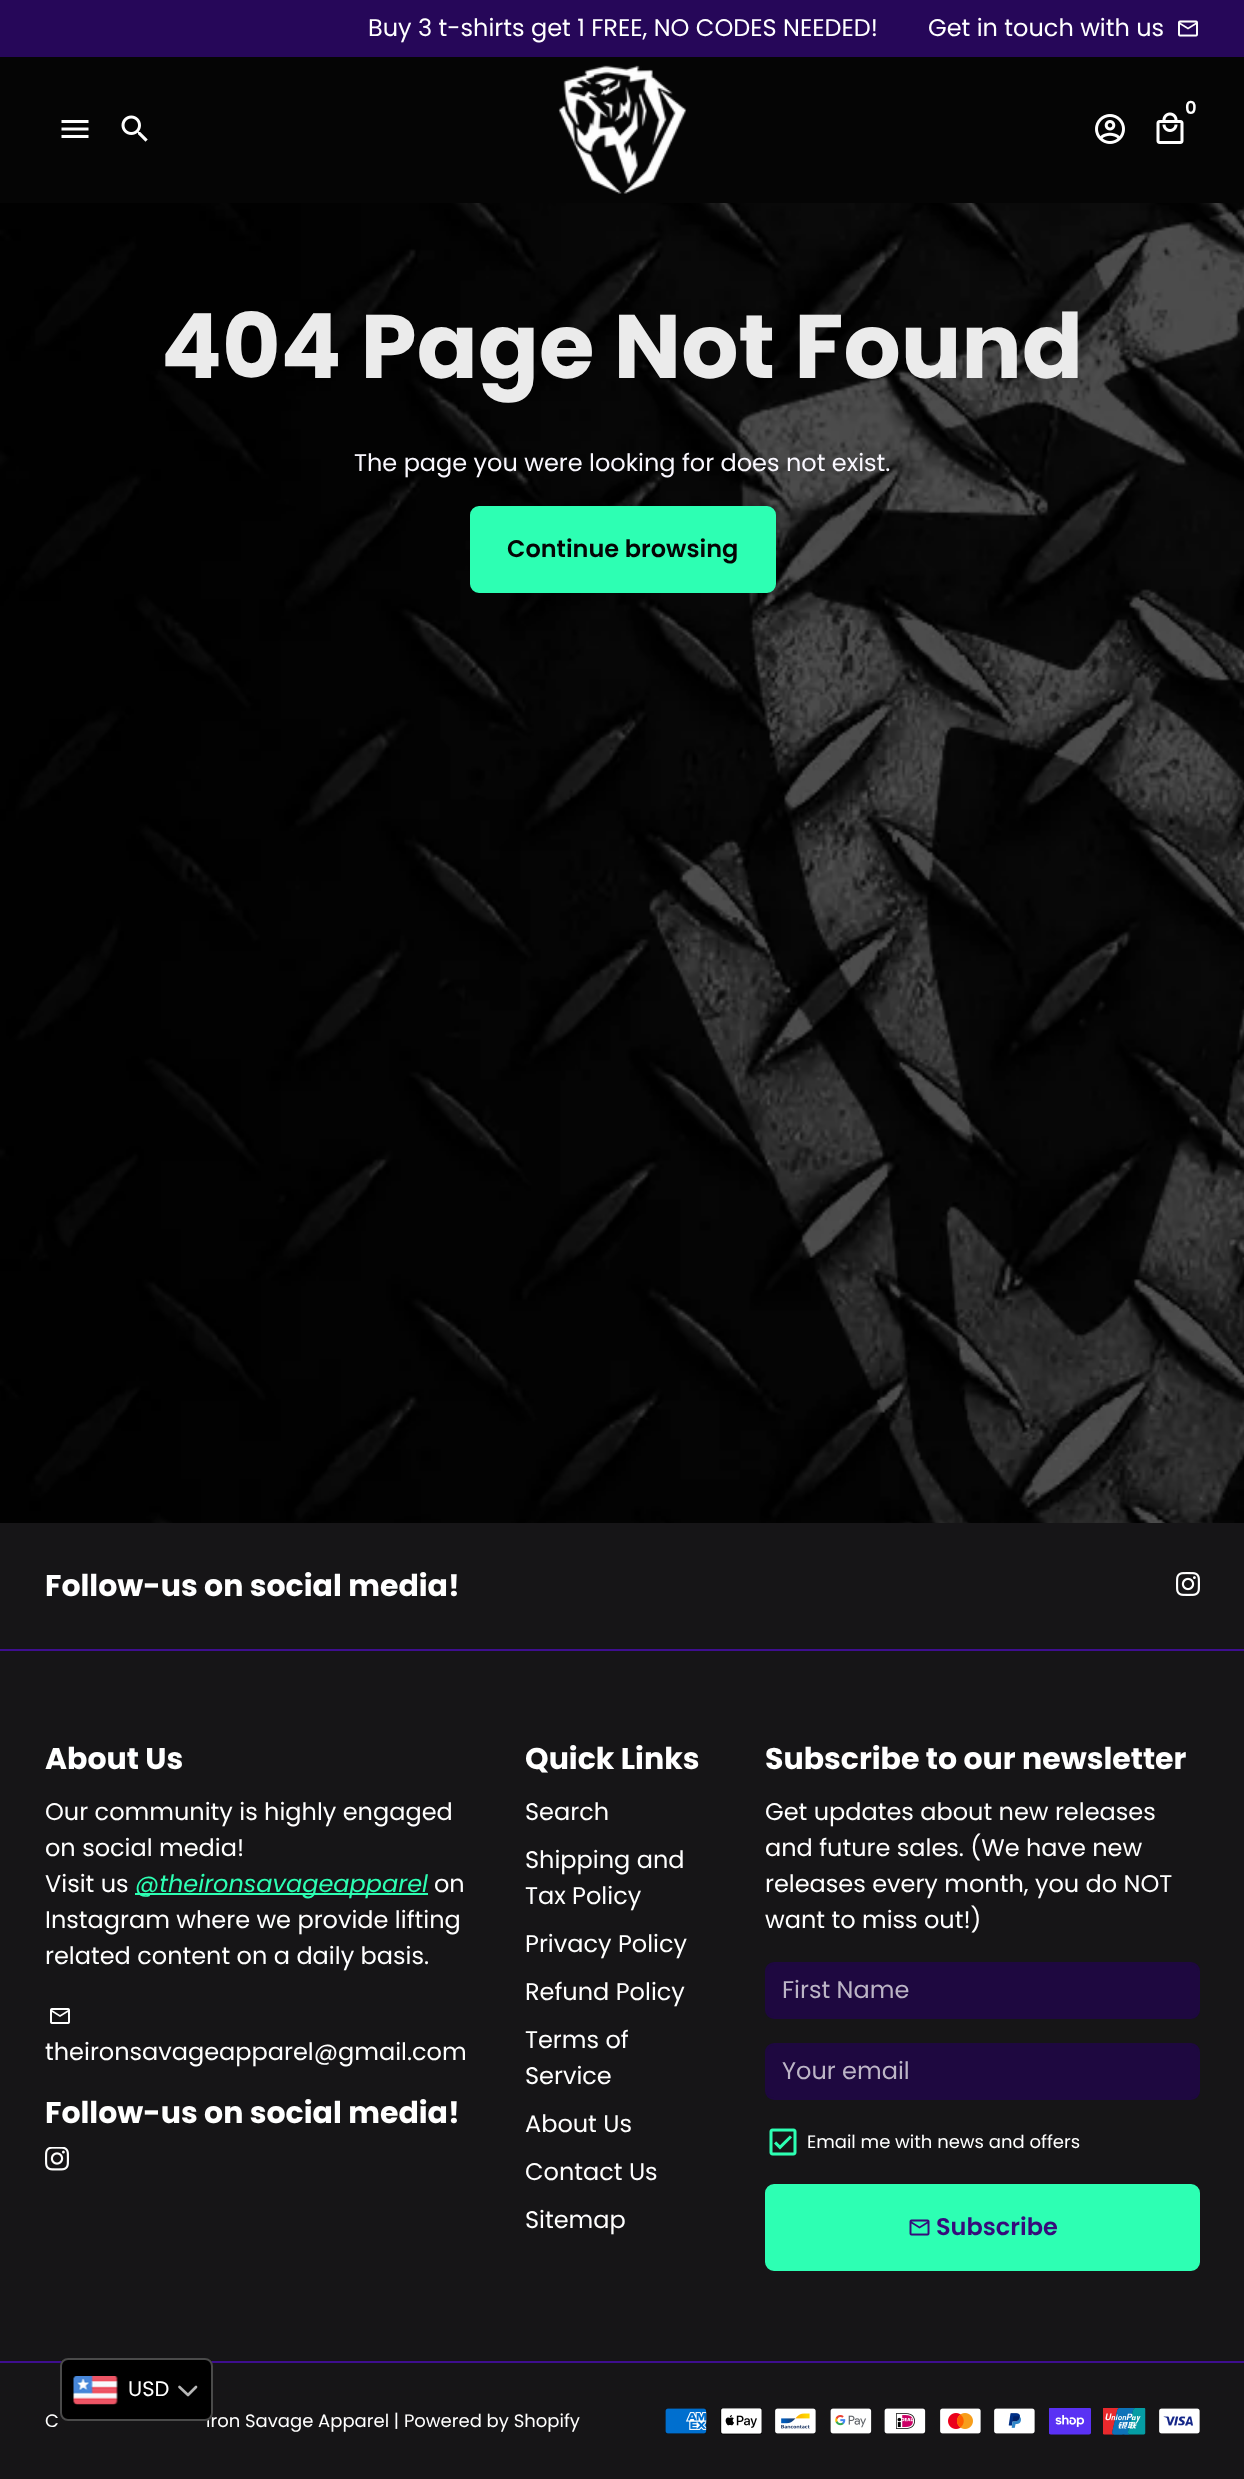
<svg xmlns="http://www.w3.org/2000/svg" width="1244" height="2479">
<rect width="100%" height="100%" fill="#fff"/>
<image x="0" y="203" width="1244" height="1320" href="media/1.png"/>
<rect width="1244" height="57" fill="#260759"/>
<text x="368" y="36" style="font-family:Poppins;font-size:24px;fill:#fff">Buy 3 t-shirts get 1 FREE, NO CODES NEEDED!</text>
<text x="928" y="36" style="font-family:Poppins;font-size:24px;fill:#fff">Get in touch with us</text>
<image x="1178" y="20" width="20" height="17" href="media/2.png"/>
<rect y="57" width="1244" height="146" fill="#050505"/>
<image x="558" y="65" width="129" height="129" href="media/3.png"/>
<text x="1185" y="114" style="font-family:Poppins;font-size:18px;font-weight:600;fill:#fff">0</text>
<image x="1156" y="112" width="28" height="32" href="media/4.png"/>
<image x="1095" y="114" width="30" height="30" href="media/5.png"/>
<image x="61" y="120" width="28" height="18" href="media/6.png"/>
<image x="121" y="115" width="27" height="27" href="media/7.png"/>
<text x="161" y="378" style="font-family:Poppins;font-size:90px;font-weight:bold;fill:#ebebeb">404 Page Not Found</text>
<text x="354" y="471" style="font-family:Poppins;font-size:24px;fill:#faf8ff">The page you were looking for does not exist.</text>
<rect x="471" y="507" width="304" height="85" rx="8" fill="#2dffb3" stroke="#2dffb3" stroke-width="2"/>
<text x="507" y="557" style="font-family:Poppins;font-size:24px;font-weight:600;fill:#050505">Continue browsing</text>
<rect y="1523" width="1244" height="956" fill="#161517"/>
<rect y="1649" width="1244" height="2" fill="#3e0e8f"/>
<text x="45" y="1596" style="font-family:Poppins;font-size:30px;font-weight:bold;fill:#fff">Follow-us on social media!</text>
<image x="1176" y="1572" width="24" height="24" href="media/8.png"/>
<text x="45" y="1769" style="font-family:Poppins;font-size:30px;font-weight:bold;fill:#fff">About Us</text>
<text x="45" y="1820" style="font-family:Poppins;font-size:24px;fill:#fff">Our community is highly engaged</text>
<text x="45" y="1856" style="font-family:Poppins;font-size:24px;fill:#fff">on social media!</text>
<text x="45" y="1892" style="font-family:Poppins;font-size:24px;fill:#fff">Visit us</text>
<rect x="135" y="1893" width="293" height="2" fill="#2dffb3"/>
<text x="135" y="1892" style="font-family:Poppins;font-size:24px;font-style:italic;fill:#2dffb3">@theironsavageapparel</text>
<text x="434" y="1892" style="font-family:Poppins;font-size:24px;fill:#fff">on</text>
<text x="45" y="1928" style="font-family:Poppins;font-size:24px;fill:#fff">Instagram where we provide lifting</text>
<text x="45" y="1964" style="font-family:Poppins;font-size:24px;fill:#fff">related content on a daily basis.</text>
<image x="50" y="2008" width="20" height="16" href="media/9.png"/>
<text x="45" y="2060" style="font-family:Poppins;font-size:24px;fill:#fff">theironsavageapparel@gmail.com</text>
<text x="45" y="2123" style="font-family:Poppins;font-size:30px;font-weight:bold;fill:#fff">Follow-us on social media!</text>
<image x="45" y="2147" width="24" height="24" href="media/10.png"/>
<text x="525" y="1769" style="font-family:Poppins;font-size:30px;font-weight:bold;fill:#fff">Quick Links</text>
<text x="525" y="1820" style="font-family:Poppins;font-size:24px;fill:#fff">Search</text>
<text x="525" y="1868" style="font-family:Poppins;font-size:24px;fill:#fff">Shipping and</text>
<text x="525" y="1904" style="font-family:Poppins;font-size:24px;fill:#fff">Tax Policy</text>
<text x="525" y="1952" style="font-family:Poppins;font-size:24px;fill:#fff">Privacy Policy</text>
<text x="525" y="2000" style="font-family:Poppins;font-size:24px;fill:#fff">Refund Policy</text>
<text x="525" y="2048" style="font-family:Poppins;font-size:24px;fill:#fff">Terms of</text>
<text x="525" y="2084" style="font-family:Poppins;font-size:24px;fill:#fff">Service</text>
<text x="525" y="2132" style="font-family:Poppins;font-size:24px;fill:#fff">About Us</text>
<text x="525" y="2180" style="font-family:Poppins;font-size:24px;fill:#fff">Contact Us</text>
<text x="525" y="2228" style="font-family:Poppins;font-size:24px;fill:#fff">Sitemap</text>
<text x="765" y="1769" style="font-family:Poppins;font-size:30px;font-weight:bold;fill:#fff">Subscribe to our newsletter</text>
<text x="765" y="1820" style="font-family:Poppins;font-size:24px;fill:#fff">Get updates about new releases</text>
<text x="765" y="1856" style="font-family:Poppins;font-size:24px;fill:#fff">and future sales. (We have new</text>
<text x="765" y="1892" style="font-family:Poppins;font-size:24px;fill:#fff">releases every month, you do NOT</text>
<text x="765" y="1928" style="font-family:Poppins;font-size:24px;fill:#fff">want to miss out!)</text>
<rect x="766" y="1963" width="433" height="55" rx="8" fill="#1e0840" stroke="#1e0840" stroke-width="2"/>
<text x="782" y="1998" style="font-family:Poppins;font-size:24px;fill:#bcb5c6">First Name</text>
<rect x="766" y="2044" width="433" height="55" rx="8" fill="#1e0840" stroke="#1e0840" stroke-width="2"/>
<text x="782" y="2079" style="font-family:Poppins;font-size:24px;fill:#bcb5c6">Your email</text>
<image x="769" y="2128" width="28" height="28" href="media/11.png"/>
<text x="807" y="2148" style="font-family:Poppins;font-size:18px;fill:#fff">Email me with news and offers</text>
<rect x="766" y="2185" width="433" height="85" rx="8" fill="#2dffb3" stroke="#2dffb3" stroke-width="2"/>
<image x="909" y="2219" width="21" height="17" href="media/12.png"/>
<text x="936" y="2235" style="font-family:Poppins;font-size:24px;font-weight:600;fill:#360c7b">Subscribe</text>
<rect y="2361" width="1244" height="2" fill="#3e0e8f"/>
<text x="45" y="2427" style="font-family:Poppins;font-size:18px;fill:#fff">C</text>
<text x="206" y="2427" style="font-family:Poppins;font-size:18px;fill:#fff">Iron Savage Apparel | Powered by Shopify</text>
<image x="665" y="2408" width="42" height="26" href="media/13.png"/>
<image x="720" y="2408" width="42" height="27" href="media/14.png"/>
<image x="775" y="2408" width="41" height="26" href="media/15.png"/>
<image x="830" y="2408" width="42" height="26" href="media/16.png"/>
<image x="884" y="2408" width="42" height="26" href="media/17.png"/>
<image x="940" y="2408" width="41" height="26" href="media/18.png"/>
<image x="994" y="2408" width="41" height="26" href="media/19.png"/>
<image x="1049" y="2408" width="42" height="27" href="media/20.png"/>
<image x="1103" y="2408" width="43" height="27" href="media/21.png"/>
<image x="1159" y="2408" width="41" height="26" href="media/22.png"/>
<rect x="60" y="2358" width="153" height="63" rx="8" fill="#000"/>
<rect x="61" y="2359" width="151" height="61" rx="7" fill="none" stroke="#cccccc5c" stroke-width="2"/>
<image x="73" y="2376" width="45" height="29" href="media/23.png"/>
<text x="128" y="2396" style="font-family:Poppins;font-size:21px;fill:#fff">USD</text>
<path d="M179.5 2387l8.5 8l8-8" fill="none" stroke="#b7b7b7" stroke-width="2.7" stroke-linecap="round" stroke-linejoin="round"/>
</svg>
